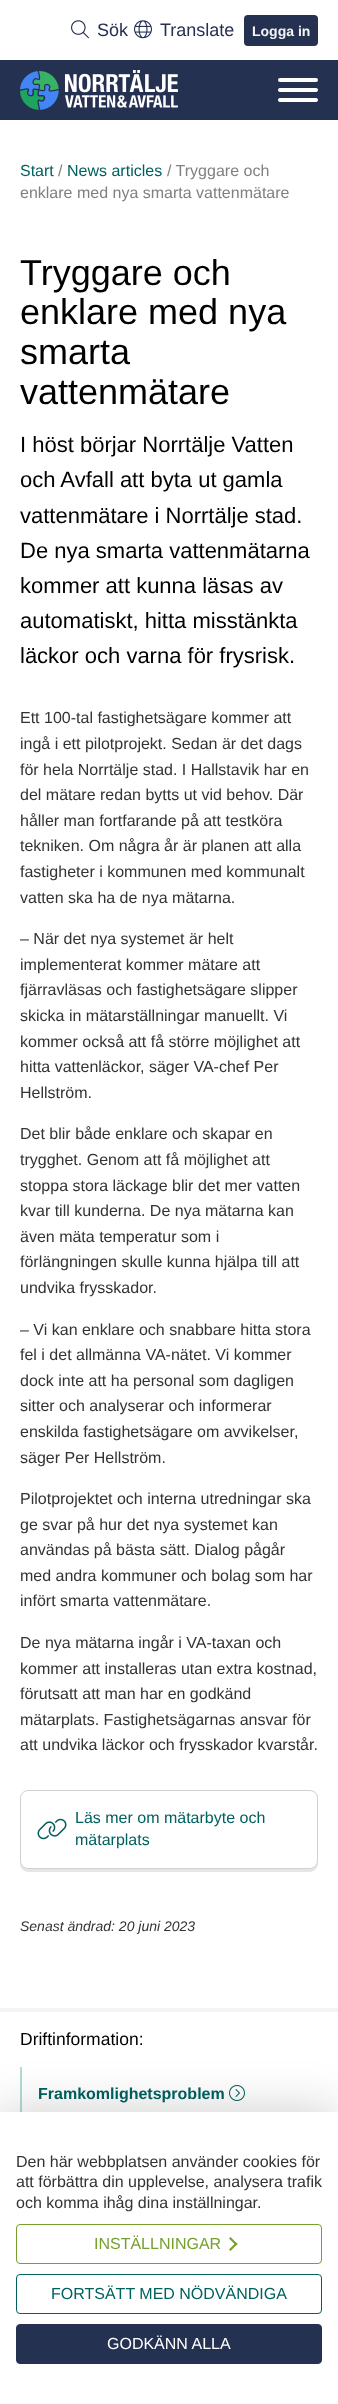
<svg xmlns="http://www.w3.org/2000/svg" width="338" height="2404">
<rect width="100%" height="100%" fill="#fff"/>
<image x="71" y="20" width="18" height="19" href="media/1.png"/>
<text x="97" y="36" style="font-family:Liberation Sans;font-size:18px;fill:#253151">Sök</text>
<image x="134" y="20" width="18" height="19" href="media/2.png"/>
<text x="160" y="36" style="font-family:Liberation Sans;font-size:18px;fill:#253151">Translate</text>
<rect x="244" y="15" width="74" height="31" rx="4" fill="#253151"/>
<text x="252" y="36" style="font-family:Liberation Sans;font-size:14px;font-weight:bold;fill:#f3f4f6">Logga in</text>
<rect y="60" width="338" height="60" fill="#253151"/>
<image x="20" y="70" width="158" height="40" href="media/3.png"/>
<rect x="278" y="88" width="40" height="4" rx="2" fill="#fff"/>
<rect x="278" y="78" width="40" height="4" rx="2" fill="#fff"/>
<rect x="278" y="98" width="40" height="4" rx="2" fill="#fff"/>
<text x="20" y="176" style="font-family:Liberation Sans;font-size:16px;fill:#00615f">Start</text>
<text x="58" y="176" style="font-family:Liberation Sans;font-size:16px;fill:#808080">/</text>
<text x="67" y="176" style="font-family:Liberation Sans;font-size:16px;fill:#00615f">News articles</text>
<text x="167" y="176" style="font-family:Liberation Sans;font-size:16px;fill:#808080">/ Tryggare och</text>
<text x="20" y="198" style="font-family:Liberation Sans;font-size:16px;fill:#808080">enklare med nya smarta vattenmätare</text>
<text x="20" y="285" style="font-family:Liberation Sans;font-size:36px;fill:#000">Tryggare och</text>
<text x="20" y="324" style="font-family:Liberation Sans;font-size:36px;fill:#000">enklare med nya</text>
<text x="20" y="364" style="font-family:Liberation Sans;font-size:36px;fill:#000">smarta</text>
<text x="20" y="404" style="font-family:Liberation Sans;font-size:36px;fill:#000">vattenmätare</text>
<text x="20" y="452" style="font-family:Liberation Sans;font-size:22px;fill:#000">I höst börjar Norrtälje Vatten</text>
<text x="20" y="487" style="font-family:Liberation Sans;font-size:22px;fill:#000">och Avfall att byta ut gamla</text>
<text x="20" y="523" style="font-family:Liberation Sans;font-size:22px;fill:#000">vattenmätare i Norrtälje stad.</text>
<text x="20" y="558" style="font-family:Liberation Sans;font-size:22px;fill:#000">De nya smarta vattenmätarna</text>
<text x="20" y="593" style="font-family:Liberation Sans;font-size:22px;fill:#000">kommer att kunna läsas av</text>
<text x="20" y="628" style="font-family:Liberation Sans;font-size:22px;fill:#000">automatiskt, hitta misstänkta</text>
<text x="20" y="663" style="font-family:Liberation Sans;font-size:22px;fill:#000">läckor och varna för frysrisk.</text>
<text x="20" y="723" style="font-family:Liberation Sans;font-size:16px;fill:#333">Ett 100-tal fastighetsägare kommer att</text>
<text x="20" y="749" style="font-family:Liberation Sans;font-size:16px;fill:#333">ingå i ett pilotprojekt. Sedan är det dags</text>
<text x="20" y="775" style="font-family:Liberation Sans;font-size:16px;fill:#333">för hela Norrtälje stad. I Hallstavik har en</text>
<text x="20" y="800" style="font-family:Liberation Sans;font-size:16px;fill:#333">del mätare redan bytts ut vid behov. Där</text>
<text x="20" y="826" style="font-family:Liberation Sans;font-size:16px;fill:#333">håller man fortfarande på att testköra</text>
<text x="20" y="851" style="font-family:Liberation Sans;font-size:16px;fill:#333">tekniken. Om några år är planen att alla</text>
<text x="20" y="877" style="font-family:Liberation Sans;font-size:16px;fill:#333">fastigheter i kommunen med kommunalt</text>
<text x="20" y="903" style="font-family:Liberation Sans;font-size:16px;fill:#333">vatten ska ha de nya mätarna.</text>
<text x="20" y="944" style="font-family:Liberation Sans;font-size:16px;fill:#333">– När det nya systemet är helt</text>
<text x="20" y="970" style="font-family:Liberation Sans;font-size:16px;fill:#333">implementerat kommer mätare att</text>
<text x="20" y="995" style="font-family:Liberation Sans;font-size:16px;fill:#333">fjärravläsas och fastighetsägare slipper</text>
<text x="20" y="1021" style="font-family:Liberation Sans;font-size:16px;fill:#333">skicka in mätarställningar manuellt. Vi</text>
<text x="20" y="1047" style="font-family:Liberation Sans;font-size:16px;fill:#333">kommer också att få större möjlighet att</text>
<text x="20" y="1072" style="font-family:Liberation Sans;font-size:16px;fill:#333">hitta vattenläckor, säger VA-chef Per</text>
<text x="20" y="1098" style="font-family:Liberation Sans;font-size:16px;fill:#333">Hellström.</text>
<text x="20" y="1139" style="font-family:Liberation Sans;font-size:16px;fill:#333">Det blir både enklare och skapar en</text>
<text x="20" y="1165" style="font-family:Liberation Sans;font-size:16px;fill:#333">trygghet. Genom att få möjlighet att</text>
<text x="20" y="1191" style="font-family:Liberation Sans;font-size:16px;fill:#333">stoppa stora läckage blir det mer vatten</text>
<text x="20" y="1216" style="font-family:Liberation Sans;font-size:16px;fill:#333">kvar till kunderna. De nya mätarna kan</text>
<text x="20" y="1242" style="font-family:Liberation Sans;font-size:16px;fill:#333">även mäta temperatur som i</text>
<text x="20" y="1267" style="font-family:Liberation Sans;font-size:16px;fill:#333">förlängningen skulle kunna hjälpa till att</text>
<text x="20" y="1293" style="font-family:Liberation Sans;font-size:16px;fill:#333">undvika frysskador.</text>
<text x="20" y="1335" style="font-family:Liberation Sans;font-size:16px;fill:#333">– Vi kan enklare och snabbare hitta stora</text>
<text x="20" y="1360" style="font-family:Liberation Sans;font-size:16px;fill:#333">fel i det allmänna VA-nätet. Vi kommer</text>
<text x="20" y="1386" style="font-family:Liberation Sans;font-size:16px;fill:#333">dock inte att ha personal som dagligen</text>
<text x="20" y="1411" style="font-family:Liberation Sans;font-size:16px;fill:#333">sitter och analyserar och informerar</text>
<text x="20" y="1437" style="font-family:Liberation Sans;font-size:16px;fill:#333">enskilda fastighetsägare om avvikelser,</text>
<text x="20" y="1463" style="font-family:Liberation Sans;font-size:16px;fill:#333">säger Per Hellström.</text>
<text x="20" y="1504" style="font-family:Liberation Sans;font-size:16px;fill:#333">Pilotprojektet och interna utredningar ska</text>
<text x="20" y="1530" style="font-family:Liberation Sans;font-size:16px;fill:#333">ge svar på hur det nya systemet kan</text>
<text x="20" y="1555" style="font-family:Liberation Sans;font-size:16px;fill:#333">användas på bästa sätt. Dialog pågår</text>
<text x="20" y="1581" style="font-family:Liberation Sans;font-size:16px;fill:#333">med andra kommuner och bolag som har</text>
<text x="20" y="1606" style="font-family:Liberation Sans;font-size:16px;fill:#333">infört smarta vattenmätare.</text>
<text x="20" y="1648" style="font-family:Liberation Sans;font-size:16px;fill:#333">De nya mätarna ingår i VA-taxan och</text>
<text x="20" y="1674" style="font-family:Liberation Sans;font-size:16px;fill:#333">kommer att installeras utan extra kostnad,</text>
<text x="20" y="1699" style="font-family:Liberation Sans;font-size:16px;fill:#333">förutsatt att man har en godkänd</text>
<text x="20" y="1725" style="font-family:Liberation Sans;font-size:16px;fill:#333">mätarplats. Fastighetsägarnas ansvar för</text>
<text x="20" y="1750" style="font-family:Liberation Sans;font-size:16px;fill:#333">att undvika läckor och frysskador kvarstår.</text>
<path d="M20 1861v3c0 4 4 8 8 8h282c4 0 8-4 8-8v-3c0 4-4 8-8 8h-282c-4 0-8-4-8-8z" fill="#e6e6e6"/>
<rect x="20.5" y="1790.5" width="297" height="78" rx="7.5" fill="none" stroke="#cfd1d3"/>
<image x="37" y="1818" width="30" height="22" href="media/4.png"/>
<text x="75" y="1823" style="font-family:Liberation Sans;font-size:16px;fill:#00615f">Läs mer om mätarbyte och</text>
<text x="75" y="1845" style="font-family:Liberation Sans;font-size:16px;fill:#00615f">mätarplats</text>
<text x="20" y="1931" style="font-family:Liberation Sans;font-size:14px;font-style:italic;fill:#333">Senast ändrad: 20 juni 2023</text>
<rect y="2008" width="338" height="4" fill="#f3f4f6"/>
<text x="20" y="2045" style="font-family:Liberation Sans;font-size:17.5px;fill:#000">Driftinformation:</text>
<rect x="20" y="2067" width="2" height="45" fill="#b2dcd6"/>
<text x="38" y="2099" style="font-family:Liberation Sans;font-size:16px;font-weight:bold;fill:#00615f">Framkomlighetsproblem</text>
<image x="229" y="2085" width="16" height="16" href="media/5.png"/>
<rect y="2112" width="338" height="292" fill="#00000033" filter="blur(25px)"/>
<rect y="2112" width="338" height="292" fill="#fff"/>
<text x="16" y="2167" style="font-family:Liberation Sans;font-size:16px;fill:#333">Den här webbplatsen använder cookies för</text>
<text x="16" y="2187" style="font-family:Liberation Sans;font-size:16px;fill:#333">att förbättra din upplevelse, analysera trafik</text>
<text x="16" y="2208" style="font-family:Liberation Sans;font-size:16px;fill:#333">och komma ihåg dina inställningar.</text>
<rect x="16.5" y="2224.5" width="305" height="39" rx="3.5" fill="none" stroke="#789f2e"/>
<text x="94" y="2249" style="font-family:Liberation Sans;font-size:16px;fill:#789f2e">INSTÄLLNINGAR</text>
<path d="M229 2238.5l1.5-1.5l7 7l-1.5 1.5z" fill="#789f2e"/>
<path d="M229 2249.5l7-7l1.5 1.5l-7 7z" fill="#789f2e"/>
<rect x="16.5" y="2274.5" width="305" height="39" rx="3.5" fill="none" stroke="#00615f"/>
<text x="51" y="2299" style="font-family:Liberation Sans;font-size:16px;fill:#00615f">FORTSÄTT MED NÖDVÄNDIGA</text>
<rect x="16.5" y="2324.5" width="305" height="39" rx="3.5" fill="#253151" stroke="#253151"/>
<text x="107" y="2349" style="font-family:Liberation Sans;font-size:16px;fill:#fff">GODKÄNN ALLA</text>
</svg>
